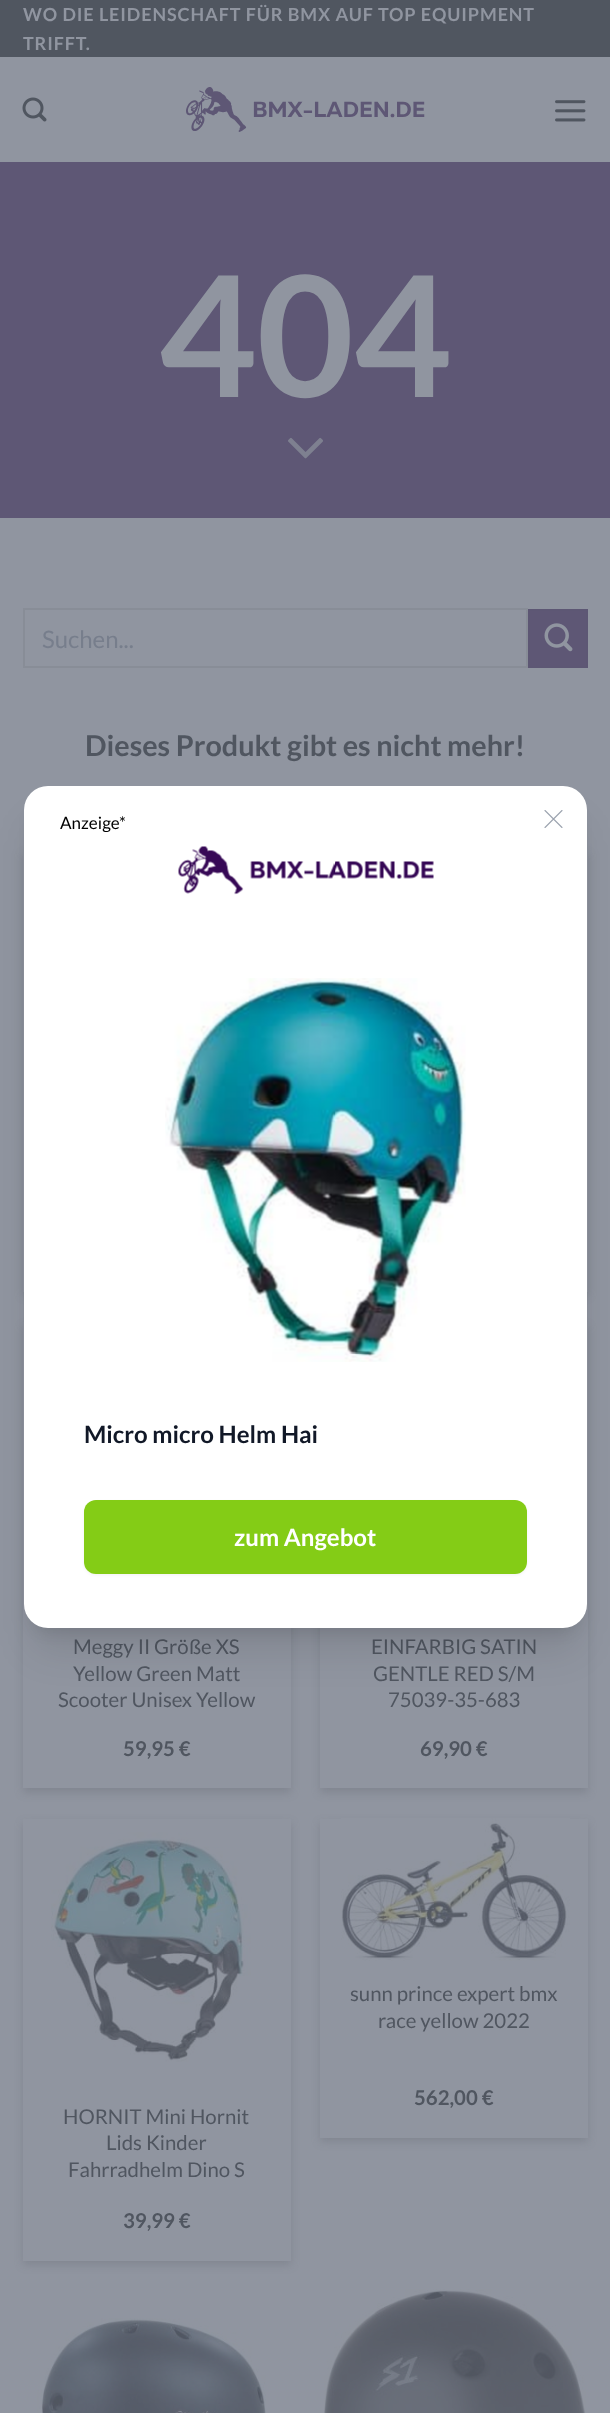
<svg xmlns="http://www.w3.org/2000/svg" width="610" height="2413">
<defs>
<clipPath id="clip1"><path d="M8 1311h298v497h-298zm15 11h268v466h-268z" clip-rule="evenodd"/></clipPath>
<clipPath id="clip2"><path d="M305 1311h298v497h-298zm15 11h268v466h-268z" clip-rule="evenodd"/></clipPath>
</defs>
<rect width="100%" height="100%" fill="#9095a0"/>
<rect width="610" height="57" fill="#505660"/>
<text x="23" y="21" style="font-family:Lato;font-size:18px;font-weight:bold;letter-spacing:0.9px;fill:#9095a0">WO DIE LEIDENSCHAFT FÜR BMX AUF TOP EQUIPMENT</text>
<text x="23" y="50" style="font-family:Lato;font-size:18px;font-weight:bold;letter-spacing:0.9px;fill:#9095a0">TRIFFT.</text>
<image x="22" y="97" width="25" height="25" href="media/1.png"/>
<image x="186" y="87" width="239" height="45" href="media/2.png"/>
<image x="555" y="100" width="31" height="22" href="media/3.png"/>
<rect y="162" width="610" height="356" fill="#5e5775"/>
<text x="159" y="397" style="font-family:Lato;font-size:168px;font-weight:bold;fill:#9095a0">404</text>
<image x="288" y="437" width="35" height="22" href="media/4.png"/>
<rect x="24" y="609" width="503" height="58" fill="none" stroke="#888d97" stroke-width="2"/>
<text x="42" y="648" style="font-family:Lato;font-size:24px;fill:#777e8c">Suchen...</text>
<rect x="529" y="610" width="58" height="57" fill="#5e5775" stroke="#5d5774" stroke-width="2"/>
<image x="544" y="623" width="29" height="29" href="media/5.png"/>
<text x="85" y="756" style="font-family:Lato;font-size:28.75px;font-weight:bold;fill:#505660">Dieses Produkt gibt es nicht mehr!</text>
<rect x="23" y="854" width="268" height="442" fill="#5056603b" filter="blur(4.5px)"/>
<rect x="23" y="1117" width="1" height="175" fill="#9095a0"/>
<image x="23" y="849" width="1" height="268" href="media/6.png"/>
<rect x="320" y="854" width="268" height="442" fill="#5056603b" filter="blur(4.5px)"/>
<rect x="587" y="849" width="1" height="443" fill="#9095a0"/>
<g clip-path="url(#clip1)">
<rect x="23" y="1326" width="268" height="467" fill="#5056603b" filter="blur(4.5px)"/>
</g>
<text x="73" y="1654" style="font-family:Lato;font-size:20.4px;fill:#505660">Meggy II Größe XS</text>
<text x="73" y="1681" style="font-family:Lato;font-size:20.4px;fill:#505660">Yellow Green Matt</text>
<text x="58" y="1707" style="font-family:Lato;font-size:20.4px;fill:#505660">Scooter Unisex Yellow</text>
<text x="123" y="1756" style="font-family:Lato;font-size:20.4px;font-weight:bold;fill:#505660">59,95 €</text>
<g clip-path="url(#clip2)">
<rect x="320" y="1326" width="268" height="467" fill="#5056603b" filter="blur(4.5px)"/>
</g>
<text x="371" y="1654" style="font-family:Lato;font-size:20.4px;fill:#505660">EINFARBIG SATIN</text>
<text x="373" y="1681" style="font-family:Lato;font-size:20.4px;fill:#505660">GENTLE RED S/M</text>
<text x="388" y="1707" style="font-family:Lato;font-size:20.4px;fill:#505660">75039-35-683</text>
<text x="420" y="1756" style="font-family:Lato;font-size:20.4px;font-weight:bold;fill:#505660">69,90 €</text>
<rect x="320" y="1823" width="268" height="319" fill="#5056603b" filter="blur(4.5px)"/>
<rect x="320" y="1819" width="268" height="319" fill="#9095a0"/>
<image x="341" y="1818" width="229" height="143" href="media/7.png"/>
<text x="350" y="2001" style="font-family:Lato;font-size:20.4px;fill:#505660">sunn prince expert bmx</text>
<text x="378" y="2028" style="font-family:Lato;font-size:20.4px;fill:#505660">race yellow 2022</text>
<text x="414" y="2105" style="font-family:Lato;font-size:20.4px;font-weight:bold;fill:#505660">562,00 €</text>
<rect x="23" y="1823" width="268" height="442" fill="#5056603b" filter="blur(4.5px)"/>
<rect x="23" y="1819" width="268" height="442" fill="#9095a0"/>
<image x="51" y="1832" width="200" height="230" href="media/8.png"/>
<text x="63" y="2124" style="font-family:Lato;font-size:20.4px;fill:#505660">HORNIT Mini Hornit</text>
<text x="106" y="2150" style="font-family:Lato;font-size:20.4px;fill:#505660">Lids Kinder</text>
<text x="68" y="2177" style="font-family:Lato;font-size:20.4px;fill:#505660">Fahrradhelm Dino S</text>
<text x="123" y="2228" style="font-family:Lato;font-size:20.4px;font-weight:bold;fill:#505660">39,99 €</text>
<image x="37" y="2318" width="229" height="95" href="media/9.png"/>
<image x="324" y="2289" width="262" height="124" href="media/10.png"/>
<rect x="33" y="807" width="545" height="824" rx="15" fill="#0000001a" filter="blur(7.5px)"/>
<rect x="32" y="824" width="547" height="826" rx="17" fill="#0000001a" filter="blur(19px)"/>
<rect x="24" y="786" width="563" height="842" rx="24" fill="#fff"/>
<text x="60" y="829" style="font-family:Lato;font-size:17px;fill:#000">Anzeige*</text>
<path d="M545 827.5l17-17m-17 0l17 17" fill="none" stroke="#9ca3af" stroke-width="1.1" stroke-linecap="round" stroke-linejoin="round"/>
<image x="178" y="846" width="256" height="49" href="media/11.png"/>
<image x="165" y="978" width="301" height="384" href="media/12.png"/>
<text x="84" y="1443" style="font-family:Lato;font-size:24px;font-weight:bold;fill:#111827">Micro micro Helm Hai</text>
<rect x="84" y="1502" width="443" height="73" rx="12" fill="#0000000d" filter="blur(1.5px)"/>
<rect x="84" y="1500" width="443" height="74" rx="12" fill="#84cc16"/>
<text x="234" y="1546" style="font-family:Lato;font-size:24px;font-weight:bold;fill:#fff">zum Angebot</text>
</svg>
